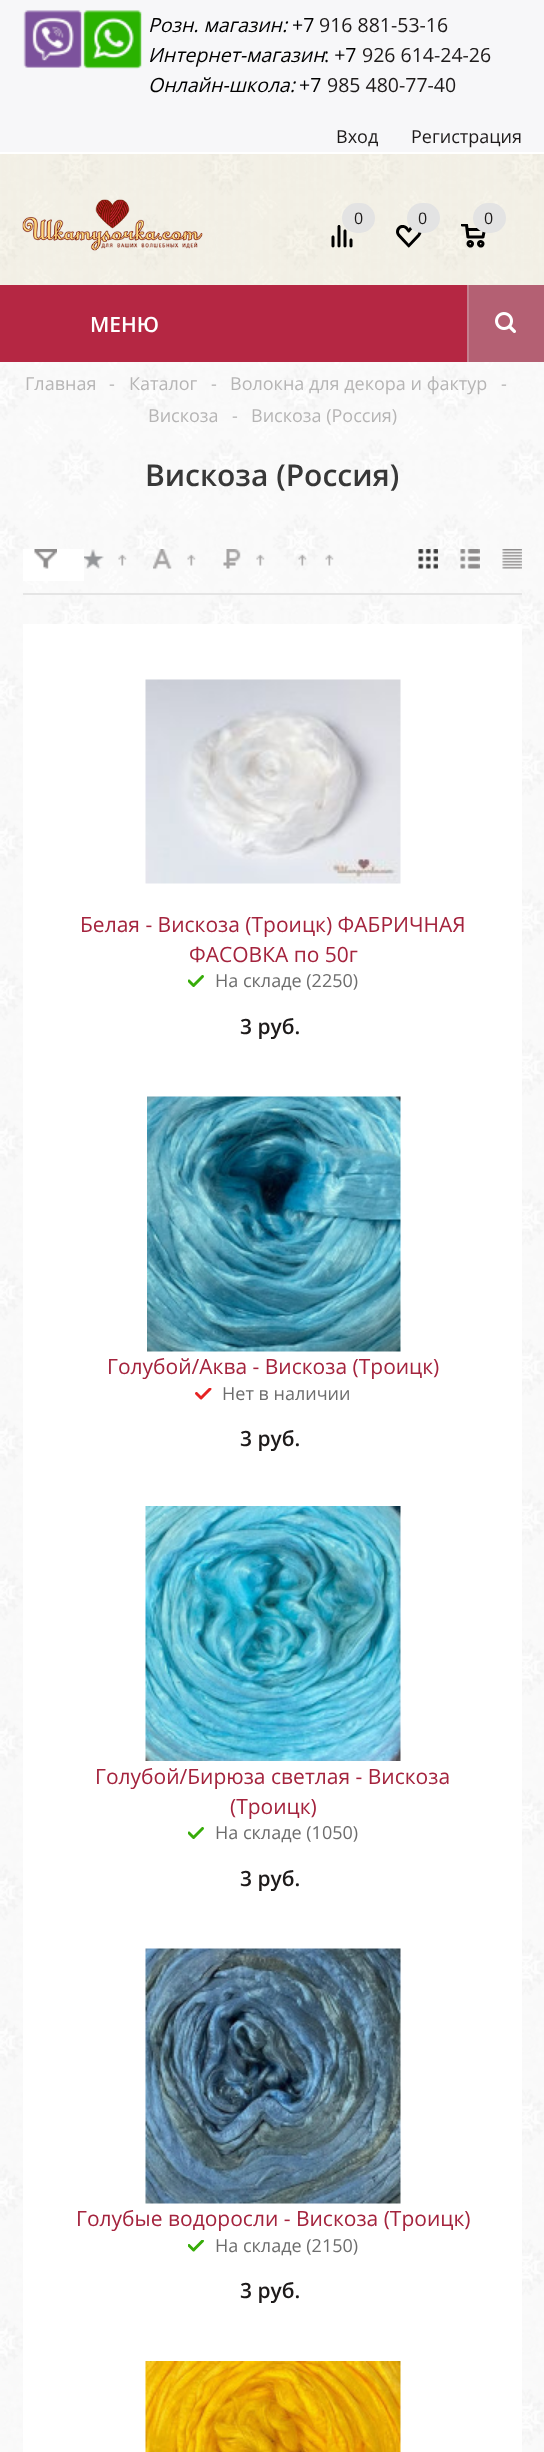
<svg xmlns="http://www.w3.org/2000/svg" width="544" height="2452">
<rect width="100%" height="100%" fill="#fff"/>
<image x="0" y="154" width="544" height="2298" href="media/1.png"/>
<rect width="544" height="152" fill="#f7f7f9"/>
<image x="23" y="10" width="119" height="59" href="media/2.png"/>
<text x="148" y="32" style="font-family:Open Sans;font-size:19.5px;font-style:italic;fill:#000">Розн. магазин:</text>
<text x="292" y="32" style="font-family:Open Sans;font-size:19.5px;fill:#000">+7</text>
<text x="319" y="32" style="font-family:Open Sans;font-size:19.5px;fill:#1d1a1a">916 881-53-16</text>
<text x="148" y="62" style="font-family:Open Sans;font-size:19.5px;font-style:italic;fill:#000">Интернет-магазин</text>
<text x="324" y="62" style="font-family:Open Sans;font-size:19.5px;fill:#000">: +7</text>
<text x="362" y="62" style="font-family:Open Sans;font-size:19.5px;fill:#1d1a1a">926 614-24-26</text>
<text x="148" y="92" style="font-family:Open Sans;font-size:19.5px;font-style:italic;fill:#000">Онлайн-школа:</text>
<text x="299" y="92" style="font-family:Open Sans;font-size:19.5px;fill:#000">+7</text>
<text x="327" y="92" style="font-family:Open Sans;font-size:19.5px;fill:#1d1a1a">985 480-77-40</text>
<text x="336" y="143" style="font-family:Open Sans;font-size:18px;fill:#1d1a1a">Вход</text>
<text x="411" y="143" style="font-family:Open Sans;font-size:18px;fill:#1d1a1a">Регистрация</text>
<image x="0" y="154" width="544" height="131" href="media/3.png"/>
<image x="22" y="199" width="181" height="52" href="media/4.png"/>
<image x="331" y="225" width="22" height="23" href="media/5.png"/>
<rect x="342" y="203" width="33" height="30" rx="15" fill="#e3e3e3"/>
<text x="354" y="224" style="font-family:Open Sans;font-size:16px;fill:#1d1a1a">0</text>
<image x="396" y="225" width="26" height="23" href="media/6.png"/>
<rect x="407" y="203" width="33" height="30" rx="15" fill="#e3e3e3"/>
<text x="418" y="224" style="font-family:Open Sans;font-size:16px;fill:#1d1a1a">0</text>
<image x="461" y="224" width="25" height="24" href="media/7.png"/>
<rect x="473" y="203" width="33" height="30" rx="15" fill="#e3e3e3"/>
<text x="484" y="224" style="font-family:Open Sans;font-size:16px;fill:#1d1a1a">0</text>
<rect y="285" width="467" height="77" fill="#b52743"/>
<text x="90" y="332" style="font-family:Open Sans;font-size:21px;font-weight:600;fill:#fff">МЕНЮ</text>
<rect x="469" y="285" width="75" height="77" fill="#b46073"/>
<rect x="467" y="285" width="2" height="77" fill="#c3808f"/>
<image x="495" y="312" width="21" height="21" href="media/8.png"/>
<text x="25" y="390" style="font-family:Open Sans;font-size:18px;fill:#b6b5b5">Главная</text>
<text x="109" y="390" style="font-family:Open Sans;font-size:18px;fill:#b6b5b5">-</text>
<text x="129" y="390" style="font-family:Open Sans;font-size:18px;fill:#b6b5b5">Каталог</text>
<text x="211" y="390" style="font-family:Open Sans;font-size:18px;fill:#b6b5b5">-</text>
<text x="230" y="390" style="font-family:Open Sans;font-size:18px;fill:#b6b5b5">Волокна для декора и фактур</text>
<text x="501" y="390" style="font-family:Open Sans;font-size:18px;fill:#b6b5b5">-</text>
<text x="148" y="422" style="font-family:Open Sans;font-size:18px;fill:#b6b5b5">Вискоза</text>
<text x="232" y="422" style="font-family:Open Sans;font-size:18px;fill:#b6b5b5">-</text>
<text x="251" y="422" style="font-family:Open Sans;font-size:18px;fill:#b6b5b5">Вискоза (Россия)</text>
<text x="145" y="486" style="font-family:Open Sans;font-size:30px;font-weight:600;fill:#383838">Вискоза (Россия)</text>
<rect x="23" y="593" width="499" height="2" fill="#e5e5e5"/>
<image x="84" y="549" width="20" height="20" href="media/9.png"/>
<image x="118" y="554" width="9" height="12" href="media/10.png"/>
<image x="153" y="549" width="19" height="20" href="media/11.png"/>
<image x="187" y="554" width="9" height="12" href="media/12.png"/>
<image x="223" y="549" width="18" height="20" href="media/13.png"/>
<image x="256" y="554" width="9" height="12" href="media/14.png"/>
<image x="298" y="554" width="9" height="12" href="media/15.png"/>
<image x="325" y="554" width="9" height="12" href="media/16.png"/>
<image x="418" y="549" width="20" height="20" href="media/17.png"/>
<image x="460" y="549" width="20" height="20" href="media/18.png"/>
<image x="502" y="549" width="20" height="20" href="media/19.png"/>
<rect x="23" y="549" width="61" height="32" fill="#fff"/>
<image x="34" y="549" width="23" height="20" href="media/20.png"/>
<rect x="23" y="624" width="499" height="1828" fill="#fff"/>
<image x="145" y="679" width="256" height="205" href="media/21.png"/>
<text x="80" y="932" style="font-family:Open Sans;font-size:21px;fill:#a4233d">Белая - Вискоза (Троицк) ФАБРИЧНАЯ</text>
<text x="189" y="962" style="font-family:Open Sans;font-size:21px;fill:#a4233d">ФАСОВКА по 50г</text>
<image x="188" y="975" width="16" height="12" href="media/22.png"/>
<text x="215" y="987" style="font-family:Open Sans;font-size:18px;fill:#6d6d6d">На складе (2250)</text>
<text x="240" y="1034" style="font-family:Open Sans;font-size:21px;font-weight:600;fill:#1d1a1a">3 руб.</text>
<image x="147" y="1096" width="254" height="256" href="media/23.png"/>
<text x="107" y="1374" style="font-family:Open Sans;font-size:21px;fill:#a4233d">Голубой/Аква - Вискоза (Троицк)</text>
<image x="195" y="1388" width="17" height="12" href="media/24.png"/>
<text x="222" y="1400" style="font-family:Open Sans;font-size:18px;fill:#6d6d6d">Нет в наличии</text>
<text x="240" y="1446" style="font-family:Open Sans;font-size:21px;font-weight:600;fill:#1d1a1a">3 руб.</text>
<image x="145" y="1506" width="256" height="255" href="media/25.png"/>
<text x="95" y="1784" style="font-family:Open Sans;font-size:21px;fill:#a4233d">Голубой/Бирюза светлая - Вискоза</text>
<text x="230" y="1814" style="font-family:Open Sans;font-size:21px;fill:#a4233d">(Троицк)</text>
<image x="188" y="1827" width="16" height="12" href="media/22.png"/>
<text x="215" y="1839" style="font-family:Open Sans;font-size:18px;fill:#6d6d6d">На складе (1050)</text>
<text x="240" y="1886" style="font-family:Open Sans;font-size:21px;font-weight:600;fill:#1d1a1a">3 руб.</text>
<image x="145" y="1948" width="256" height="256" href="media/26.png"/>
<text x="76" y="2226" style="font-family:Open Sans;font-size:21px;fill:#a4233d">Голубые водоросли - Вискоза (Троицк)</text>
<image x="188" y="2240" width="16" height="12" href="media/27.png"/>
<text x="215" y="2252" style="font-family:Open Sans;font-size:18px;fill:#6d6d6d">На складе (2150)</text>
<text x="240" y="2298" style="font-family:Open Sans;font-size:21px;font-weight:600;fill:#1d1a1a">3 руб.</text>
<image x="145" y="2361" width="256" height="91" href="media/28.png"/>
</svg>
